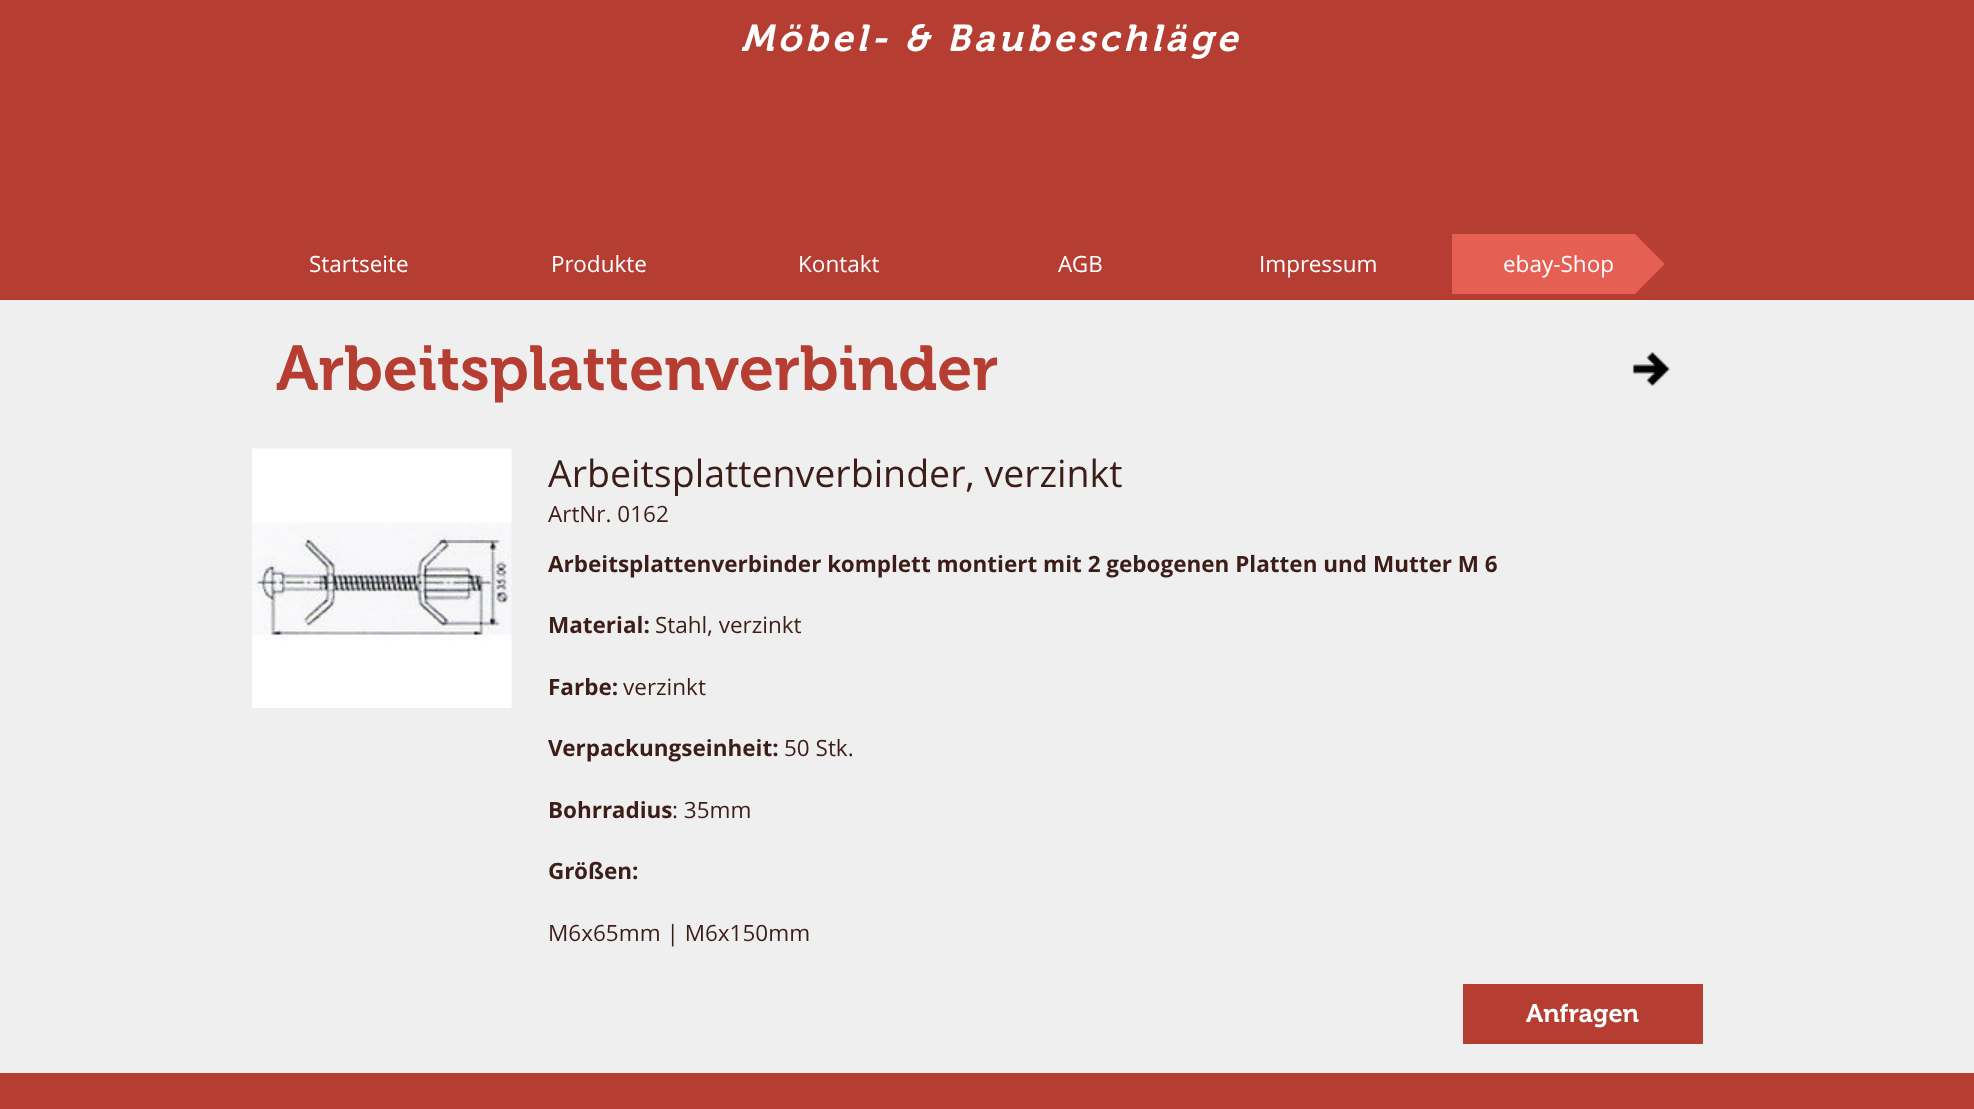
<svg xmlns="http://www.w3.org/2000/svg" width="1974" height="1109">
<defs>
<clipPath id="clip1"><rect x="1452" y="234" width="213" height="60"/></clipPath>
</defs>
<rect width="100%" height="100%" fill="#efefef"/>
<rect width="1974" height="300" fill="#b63d32"/>
<text x="741" y="51" style="font-family:'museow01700';font-size:37.5px;font-weight:600;font-style:italic;letter-spacing:3.75px;fill:#fff">Möbel- &amp; Baubeschläge</text>
<text x="309" y="272" style="font-family:Open Sans;font-size:22.5px;fill:#fff">Startseite</text>
<text x="551" y="272" style="font-family:Open Sans;font-size:22.5px;fill:#fff">Produkte</text>
<text x="798" y="272" style="font-family:Open Sans;font-size:22.5px;fill:#fff">Kontakt</text>
<text x="1058" y="272" style="font-family:Open Sans;font-size:22.5px;fill:#fff">AGB</text>
<text x="1259" y="272" style="font-family:Open Sans;font-size:22.5px;fill:#fff">Impressum</text>
<rect x="1452" y="234" width="138" height="60" fill="#e65f53"/>
<g clip-path="url(#clip1)">
<path d="M1665 264h-75v-75z" fill="#e65f53"/>
<path d="M1590 264h75l-75 75z" fill="#e65f53"/>
</g>
<text x="1503" y="272" style="font-family:Open Sans;font-size:22.5px;fill:#fff">ebay-Shop</text>
<text x="276" y="390" style="font-family:'museow01700';font-size:63px;font-weight:600;fill:#b63d32">Arbeitsplattenverbinder</text>
<image x="1632" y="352" width="38" height="34" href="media/1.png"/>
<image x="252" y="448" width="260" height="260" href="media/2.png"/>
<text x="548" y="487" style="font-family:Open Sans;font-size:37.5px;fill:#3c1d17">Arbeitsplattenverbinder, verzinkt</text>
<text x="548" y="522" style="font-family:Open Sans;font-size:22.5px;fill:#3c1d17">ArtNr. 0162</text>
<text x="548" y="572" style="font-family:Open Sans;font-size:22.5px;font-weight:bold;fill:#3c1d17">Arbeitsplattenverbinder komplett montiert mit 2 gebogenen Platten und Mutter M 6</text>
<text x="548" y="633" style="font-family:Open Sans;font-size:22.5px;font-weight:bold;fill:#3c1d17">Material:</text>
<text x="655" y="633" style="font-family:Open Sans;font-size:22.5px;fill:#3c1d17">Stahl, verzinkt</text>
<text x="548" y="695" style="font-family:Open Sans;font-size:22.5px;font-weight:bold;fill:#3c1d17">Farbe:</text>
<text x="623" y="695" style="font-family:Open Sans;font-size:22.5px;fill:#3c1d17">verzinkt</text>
<text x="548" y="756" style="font-family:Open Sans;font-size:22.5px;font-weight:bold;fill:#3c1d17">Verpackungseinheit:</text>
<text x="784" y="756" style="font-family:Open Sans;font-size:22.5px;fill:#3c1d17">50 Stk.</text>
<text x="548" y="818" style="font-family:Open Sans;font-size:22.5px;font-weight:bold;fill:#3c1d17">Bohrradius</text>
<text x="672" y="818" style="font-family:Open Sans;font-size:22.5px;fill:#3c1d17">: 35mm</text>
<text x="548" y="879" style="font-family:Open Sans;font-size:22.5px;font-weight:bold;fill:#3c1d17">Größen:</text>
<text x="548" y="941" style="font-family:Open Sans;font-size:22.5px;fill:#3c1d17">M6x65mm | M6x150mm</text>
<rect x="1463" y="984" width="240" height="60" fill="#b63d32"/>
<text x="1526" y="1022" style="font-family:'museow01700';font-size:25.5px;font-weight:600;fill:#fff">Anfragen</text>
<rect y="1073" width="1974" height="36" fill="#b63d32"/>
</svg>
